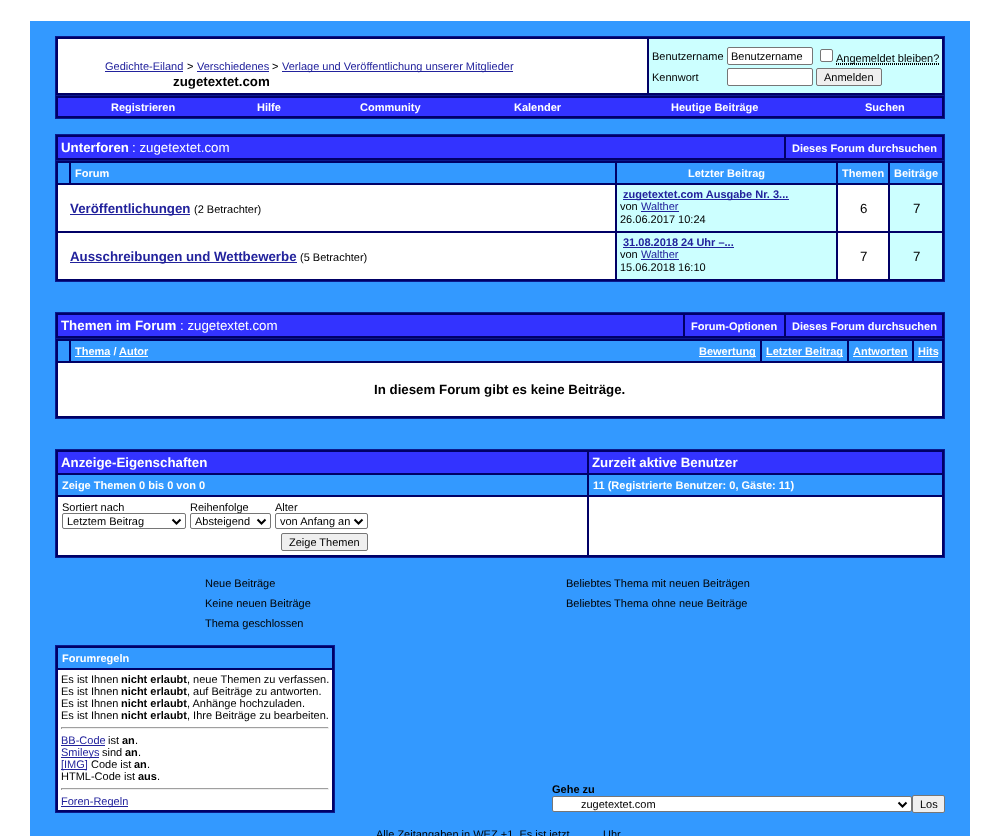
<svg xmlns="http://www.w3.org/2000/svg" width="1000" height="836">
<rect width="100%" height="100%" fill="#fff"/>
<rect x="30" y="21" width="940" height="815" fill="#39f"/>
<rect x="55.5" y="36.5" width="889" height="59" fill="#006" stroke="#0b198c"/>
<rect x="58" y="39" width="589" height="54" fill="#fff"/>
<text x="105" y="70" style="font-family:Liberation Sans;font-size:11px;fill:#22229c">Gedichte-Eiland</text>
<rect x="105" y="71" width="78" height="1" fill="#22229c"/>
<text x="187" y="70" style="font-family:Liberation Sans;font-size:11px;fill:#000">&gt;</text>
<text x="197" y="70" style="font-family:Liberation Sans;font-size:11px;fill:#22229c">Verschiedenes</text>
<rect x="197" y="71" width="72" height="1" fill="#22229c"/>
<text x="272" y="70" style="font-family:Liberation Sans;font-size:11px;fill:#000">&gt;</text>
<rect x="282" y="71" width="231" height="1" fill="#22229c"/>
<text x="282" y="70" style="font-family:Liberation Sans;font-size:11px;fill:#22229c">Verlage und Veröffentlichung unserer Mitglieder</text>
<text x="173" y="86" style="font-family:Liberation Sans;font-size:13.3px;font-weight:bold;fill:#000">zugetextet.com</text>
<rect x="649" y="39" width="293" height="54" fill="#cff"/>
<text x="652" y="60" style="font-family:Liberation Sans;font-size:11px;fill:#000">Benutzername</text>
<rect x="727.5" y="47.5" width="85" height="17" rx="1.5" fill="#fff" stroke="#767676"/>
<text x="731" y="60" style="font-family:Liberation Sans;font-size:11px;fill:#000">Benutzername</text>
<rect x="820.5" y="49.5" width="12" height="12" rx="1.5" fill="#fff" stroke="#767676"/>
<path d="M836 64.5h103" fill="none" stroke="#000" stroke-dasharray="1 1"/>
<path d="M836 63.5h103.5" fill="none" stroke="#000" stroke-dasharray="1 1"/>
<text x="836" y="62" style="font-family:Liberation Sans;font-size:11px;fill:#000">Angemeldet bleiben?</text>
<text x="652" y="81" style="font-family:Liberation Sans;font-size:11px;fill:#000">Kennwort</text>
<rect x="727.5" y="68.5" width="85" height="17" rx="1.5" fill="#fff" stroke="#767676"/>
<rect x="816.5" y="68.5" width="65" height="17" rx="1.5" fill="#efefef" stroke="#767676"/>
<text x="824" y="81" style="font-family:Liberation Sans;font-size:11px;fill:#000">Anmelden</text>
<rect x="56" y="96" width="888" height="22" fill="#006"/>
<rect x="944" y="96" width="1" height="23" fill="#0b198c"/>
<rect x="55" y="118" width="890" height="1" fill="#0b198c"/>
<rect x="55" y="96" width="1" height="23" fill="#0b198c"/>
<rect x="58" y="98" width="884" height="18" fill="#33f"/>
<text x="111" y="111" style="font-family:Liberation Sans;font-size:11px;font-weight:bold;fill:#fff">Registrieren</text>
<text x="257" y="111" style="font-family:Liberation Sans;font-size:11px;font-weight:bold;fill:#fff">Hilfe</text>
<text x="360" y="111" style="font-family:Liberation Sans;font-size:11px;font-weight:bold;fill:#fff">Community</text>
<text x="514" y="111" style="font-family:Liberation Sans;font-size:11px;font-weight:bold;fill:#fff">Kalender</text>
<text x="671" y="111" style="font-family:Liberation Sans;font-size:11px;font-weight:bold;fill:#fff">Heutige Beiträge</text>
<text x="865" y="111" style="font-family:Liberation Sans;font-size:11px;font-weight:bold;fill:#fff">Suchen</text>
<rect x="56" y="135" width="888" height="25" fill="#006"/>
<rect x="55" y="134" width="890" height="1" fill="#0b198c"/>
<rect x="944" y="134" width="1" height="26" fill="#0b198c"/>
<rect x="55" y="134" width="1" height="26" fill="#0b198c"/>
<rect x="58" y="137" width="726" height="21" fill="#33f"/>
<text x="61" y="152" style="font-family:Liberation Sans;font-size:13.3px;font-weight:bold;fill:#fff">Unterforen</text>
<text x="132" y="152" style="font-family:Liberation Sans;font-size:13.3px;fill:#fff">: zugetextet.com</text>
<rect x="786" y="137" width="156" height="21" fill="#33f"/>
<text x="792" y="152" style="font-family:Liberation Sans;font-size:11px;font-weight:bold;fill:#fff">Dieses Forum durchsuchen</text>
<rect x="55.5" y="160.5" width="889" height="121" fill="#006" stroke="#0b198c"/>
<rect x="58" y="163" width="11" height="20" fill="#39f"/>
<rect x="71" y="163" width="544" height="20" fill="#39f"/>
<text x="75" y="177" style="font-family:Liberation Sans;font-size:11px;font-weight:bold;fill:#fff">Forum</text>
<rect x="617" y="163" width="219" height="20" fill="#39f"/>
<text x="688" y="177" style="font-family:Liberation Sans;font-size:11px;font-weight:bold;fill:#fff">Letzter Beitrag</text>
<rect x="838" y="163" width="50" height="20" fill="#39f"/>
<text x="842" y="177" style="font-family:Liberation Sans;font-size:11px;font-weight:bold;fill:#fff">Themen</text>
<rect x="890" y="163" width="52" height="20" fill="#39f"/>
<text x="894" y="177" style="font-family:Liberation Sans;font-size:11px;font-weight:bold;fill:#fff">Beiträge</text>
<rect x="58" y="185" width="557" height="46" fill="#fff"/>
<rect x="70" y="214" width="120" height="1" fill="#22229c"/>
<text x="70" y="213" style="font-family:Liberation Sans;font-size:13.3px;font-weight:bold;fill:#22229c">Veröffentlichungen</text>
<text x="194" y="213" style="font-family:Liberation Sans;font-size:11px;fill:#000">(2 Betrachter)</text>
<rect x="617" y="185" width="219" height="46" fill="#cff"/>
<rect x="623" y="199" width="166" height="1" fill="#22229c"/>
<text x="623" y="198" style="font-family:Liberation Sans;font-size:11px;font-weight:bold;fill:#22229c">zugetextet.com Ausgabe Nr. 3...</text>
<text x="620" y="210" style="font-family:Liberation Sans;font-size:11px;fill:#000">von</text>
<text x="641" y="210" style="font-family:Liberation Sans;font-size:11px;fill:#22229c">Walther</text>
<rect x="641" y="211" width="38" height="1" fill="#22229c"/>
<text x="620" y="223" style="font-family:Liberation Sans;font-size:11px;fill:#000">26.06.2017 10:24</text>
<rect x="838" y="185" width="50" height="46" fill="#fff"/>
<text x="860" y="213" style="font-family:Liberation Sans;font-size:13.3px;fill:#000">6</text>
<rect x="890" y="185" width="52" height="46" fill="#cff"/>
<text x="913" y="213" style="font-family:Liberation Sans;font-size:13.3px;fill:#000">7</text>
<rect x="58" y="233" width="557" height="46" fill="#fff"/>
<rect x="70" y="262" width="227" height="1" fill="#22229c"/>
<text x="70" y="261" style="font-family:Liberation Sans;font-size:13.3px;font-weight:bold;fill:#22229c">Ausschreibungen und Wettbewerbe</text>
<text x="300" y="261" style="font-family:Liberation Sans;font-size:11px;fill:#000">(5 Betrachter)</text>
<rect x="617" y="233" width="219" height="46" fill="#cff"/>
<text x="623" y="246" style="font-family:Liberation Sans;font-size:11px;font-weight:bold;fill:#22229c">31.08.2018 24 Uhr –...</text>
<rect x="623" y="247" width="111" height="1" fill="#22229c"/>
<text x="620" y="258" style="font-family:Liberation Sans;font-size:11px;fill:#000">von</text>
<text x="641" y="258" style="font-family:Liberation Sans;font-size:11px;fill:#22229c">Walther</text>
<rect x="641" y="259" width="38" height="1" fill="#22229c"/>
<text x="620" y="271" style="font-family:Liberation Sans;font-size:11px;fill:#000">15.06.2018 16:10</text>
<rect x="838" y="233" width="50" height="46" fill="#fff"/>
<text x="860" y="261" style="font-family:Liberation Sans;font-size:13.3px;fill:#000">7</text>
<rect x="890" y="233" width="52" height="46" fill="#cff"/>
<text x="913" y="261" style="font-family:Liberation Sans;font-size:13.3px;fill:#000">7</text>
<rect x="56" y="313" width="888" height="25" fill="#006"/>
<rect x="55" y="312" width="890" height="1" fill="#0b198c"/>
<rect x="944" y="312" width="1" height="26" fill="#0b198c"/>
<rect x="55" y="312" width="1" height="26" fill="#0b198c"/>
<rect x="58" y="315" width="625" height="21" fill="#33f"/>
<text x="61" y="330" style="font-family:Liberation Sans;font-size:13.3px;font-weight:bold;fill:#fff">Themen im Forum</text>
<text x="180" y="330" style="font-family:Liberation Sans;font-size:13.3px;fill:#fff">: zugetextet.com</text>
<rect x="685" y="315" width="99" height="21" fill="#33f"/>
<text x="691" y="330" style="font-family:Liberation Sans;font-size:11px;font-weight:bold;fill:#fff">Forum-Optionen</text>
<rect x="786" y="315" width="156" height="21" fill="#33f"/>
<text x="792" y="330" style="font-family:Liberation Sans;font-size:11px;font-weight:bold;fill:#fff">Dieses Forum durchsuchen</text>
<rect x="55.5" y="338.5" width="889" height="80" fill="#006" stroke="#0b198c"/>
<rect x="58" y="341" width="11" height="20" fill="#39f"/>
<rect x="71" y="341" width="689" height="20" fill="#39f"/>
<text x="75" y="355" style="font-family:Liberation Sans;font-size:11px;font-weight:bold;fill:#fff">Thema /</text>
<rect x="75" y="356" width="35" height="1" fill="#fff"/>
<text x="119" y="355" style="font-family:Liberation Sans;font-size:11px;font-weight:bold;fill:#fff">Autor</text>
<rect x="119" y="356" width="29" height="1" fill="#fff"/>
<rect x="699" y="356" width="57" height="1" fill="#fff"/>
<text x="699" y="355" style="font-family:Liberation Sans;font-size:11px;font-weight:bold;fill:#fff">Bewertung</text>
<rect x="762" y="341" width="85" height="20" fill="#39f"/>
<rect x="766" y="356" width="77" height="1" fill="#fff"/>
<text x="766" y="355" style="font-family:Liberation Sans;font-size:11px;font-weight:bold;fill:#fff">Letzter Beitrag</text>
<rect x="849" y="341" width="63" height="20" fill="#39f"/>
<text x="853" y="355" style="font-family:Liberation Sans;font-size:11px;font-weight:bold;fill:#fff">Antworten</text>
<rect x="853" y="356" width="55" height="1" fill="#fff"/>
<rect x="914" y="341" width="28" height="20" fill="#39f"/>
<text x="918" y="355" style="font-family:Liberation Sans;font-size:11px;font-weight:bold;fill:#fff">Hits</text>
<rect x="918" y="356" width="20" height="1" fill="#fff"/>
<rect x="58" y="363" width="884" height="53" fill="#fff"/>
<text x="374" y="394" style="font-family:Liberation Sans;font-size:13.3px;font-weight:bold;fill:#000">In diesem Forum gibt es keine Beiträge.</text>
<rect x="55.5" y="449.5" width="889" height="108" fill="#006" stroke="#0b198c"/>
<rect x="58" y="452" width="529" height="21" fill="#33f"/>
<text x="61" y="467" style="font-family:Liberation Sans;font-size:13.3px;font-weight:bold;fill:#fff">Anzeige-Eigenschaften</text>
<rect x="589" y="452" width="353" height="21" fill="#33f"/>
<text x="592" y="467" style="font-family:Liberation Sans;font-size:13.3px;font-weight:bold;fill:#fff">Zurzeit aktive Benutzer</text>
<rect x="58" y="475" width="529" height="20" fill="#39f"/>
<text x="62" y="489" style="font-family:Liberation Sans;font-size:11px;font-weight:bold;fill:#fff">Zeige Themen 0 bis 0 von 0</text>
<rect x="589" y="475" width="353" height="20" fill="#39f"/>
<text x="593" y="489" style="font-family:Liberation Sans;font-size:11px;font-weight:bold;fill:#fff">11 (Registrierte Benutzer: 0, Gäste: 11)</text>
<rect x="58" y="497" width="529" height="58" fill="#fff"/>
<text x="62" y="511" style="font-family:Liberation Sans;font-size:11px;fill:#000">Sortiert nach</text>
<rect x="62.5" y="513.5" width="123" height="15" rx="1.5" fill="none" stroke="#767676"/>
<path d="M172.5 519.5l4 4l4-4" fill="none" stroke="#000" stroke-width="2"/>
<text x="67" y="525" style="font-family:Liberation Sans;font-size:11px;fill:#000">Letztem Beitrag</text>
<text x="190" y="511" style="font-family:Liberation Sans;font-size:11px;fill:#000">Reihenfolge</text>
<rect x="190.5" y="513.5" width="80" height="15" rx="1.5" fill="#fff" stroke="#767676"/>
<path d="M257.5 519.5l4 4l4-4" fill="none" stroke="#000" stroke-width="2"/>
<text x="195" y="525" style="font-family:Liberation Sans;font-size:11px;fill:#000">Absteigend</text>
<text x="275" y="511" style="font-family:Liberation Sans;font-size:11px;fill:#000">Alter</text>
<rect x="275.5" y="513.5" width="92" height="15" rx="1.5" fill="none" stroke="#767676"/>
<path d="M354.5 519.5l4 4l4-4" fill="none" stroke="#000" stroke-width="2"/>
<text x="280" y="525" style="font-family:Liberation Sans;font-size:11px;fill:#000">von Anfang an</text>
<rect x="281.5" y="533.5" width="86" height="17" rx="1.5" fill="#efefef" stroke="#767676"/>
<text x="289" y="546" style="font-family:Liberation Sans;font-size:11px;fill:#000">Zeige Themen</text>
<rect x="589" y="497" width="353" height="58" fill="#fff"/>
<text x="205" y="587" style="font-family:Liberation Sans;font-size:11px;fill:#000">Neue Beiträge</text>
<text x="566" y="587" style="font-family:Liberation Sans;font-size:11px;fill:#000">Beliebtes Thema mit neuen Beiträgen</text>
<text x="205" y="607" style="font-family:Liberation Sans;font-size:11px;fill:#000">Keine neuen Beiträge</text>
<text x="566" y="607" style="font-family:Liberation Sans;font-size:11px;fill:#000">Beliebtes Thema ohne neue Beiträge</text>
<text x="205" y="627" style="font-family:Liberation Sans;font-size:11px;fill:#000">Thema geschlossen</text>
<rect x="55.5" y="645.5" width="279" height="167" fill="#006" stroke="#0b198c"/>
<rect x="58" y="648" width="274" height="20" fill="#39f"/>
<text x="62" y="662" style="font-family:Liberation Sans;font-size:11px;font-weight:bold;fill:#fff">Forumregeln</text>
<rect x="58" y="670" width="274" height="140" fill="#fff"/>
<text x="61" y="683" style="font-family:Liberation Sans;font-size:11px;fill:#000">Es ist Ihnen</text>
<text x="121" y="683" style="font-family:Liberation Sans;font-size:11px;font-weight:bold;fill:#000">nicht erlaubt</text>
<text x="187" y="683" style="font-family:Liberation Sans;font-size:11px;fill:#000">, neue Themen zu verfassen.</text>
<text x="61" y="695" style="font-family:Liberation Sans;font-size:11px;fill:#000">Es ist Ihnen</text>
<text x="121" y="695" style="font-family:Liberation Sans;font-size:11px;font-weight:bold;fill:#000">nicht erlaubt</text>
<text x="187" y="695" style="font-family:Liberation Sans;font-size:11px;fill:#000">, auf Beiträge zu antworten.</text>
<text x="61" y="707" style="font-family:Liberation Sans;font-size:11px;fill:#000">Es ist Ihnen</text>
<text x="121" y="707" style="font-family:Liberation Sans;font-size:11px;font-weight:bold;fill:#000">nicht erlaubt</text>
<text x="187" y="707" style="font-family:Liberation Sans;font-size:11px;fill:#000">, Anhänge hochzuladen.</text>
<text x="61" y="719" style="font-family:Liberation Sans;font-size:11px;fill:#000">Es ist Ihnen</text>
<text x="121" y="719" style="font-family:Liberation Sans;font-size:11px;font-weight:bold;fill:#000">nicht erlaubt</text>
<text x="187" y="719" style="font-family:Liberation Sans;font-size:11px;fill:#000">, Ihre Beiträge zu bearbeiten.</text>
<rect x="61" y="727" width="268" height="1" fill="#9f9f9f"/>
<rect x="328" y="727" width="1" height="2" fill="#eee"/>
<rect x="61" y="728" width="268" height="1" fill="#eee"/>
<rect x="61" y="727" width="1" height="2" fill="#9f9f9f"/>
<text x="61" y="744" style="font-family:Liberation Sans;font-size:11px;fill:#22229c">BB-Code</text>
<rect x="61" y="745" width="44" height="1" fill="#22229c"/>
<text x="108" y="744" style="font-family:Liberation Sans;font-size:11px;fill:#000">ist</text>
<text x="122" y="744" style="font-family:Liberation Sans;font-size:11px;font-weight:bold;fill:#000">an</text>
<text x="135" y="744" style="font-family:Liberation Sans;font-size:11px;fill:#000">.</text>
<rect x="61" y="757" width="38" height="1" fill="#22229c"/>
<text x="61" y="756" style="font-family:Liberation Sans;font-size:11px;fill:#22229c">Smileys</text>
<text x="102" y="756" style="font-family:Liberation Sans;font-size:11px;fill:#000">sind</text>
<text x="125" y="756" style="font-family:Liberation Sans;font-size:11px;font-weight:bold;fill:#000">an</text>
<text x="138" y="756" style="font-family:Liberation Sans;font-size:11px;fill:#000">.</text>
<rect x="61" y="769" width="26" height="1" fill="#22229c"/>
<text x="61" y="768" style="font-family:Liberation Sans;font-size:11px;fill:#22229c">[IMG]</text>
<text x="91" y="768" style="font-family:Liberation Sans;font-size:11px;fill:#000">Code ist</text>
<text x="134" y="768" style="font-family:Liberation Sans;font-size:11px;font-weight:bold;fill:#000">an</text>
<text x="147" y="768" style="font-family:Liberation Sans;font-size:11px;fill:#000">.</text>
<text x="61" y="780" style="font-family:Liberation Sans;font-size:11px;fill:#000">HTML-Code ist</text>
<text x="138" y="780" style="font-family:Liberation Sans;font-size:11px;font-weight:bold;fill:#000">aus</text>
<text x="157" y="780" style="font-family:Liberation Sans;font-size:11px;fill:#000">.</text>
<rect x="61" y="788" width="268" height="1" fill="#9f9f9f"/>
<rect x="328" y="788" width="1" height="2" fill="#eee"/>
<rect x="61" y="789" width="268" height="1" fill="#eee"/>
<rect x="61" y="788" width="1" height="2" fill="#9f9f9f"/>
<rect x="61" y="806" width="67" height="1" fill="#22229c"/>
<text x="61" y="805" style="font-family:Liberation Sans;font-size:11px;fill:#22229c">Foren-Regeln</text>
<text x="552" y="793" style="font-family:Liberation Sans;font-size:11px;font-weight:bold;fill:#000">Gehe zu</text>
<rect x="552.5" y="796.5" width="359" height="15" rx="1.5" fill="#fff" stroke="#767676"/>
<path d="M898.5 802.5l4 4l4-4" fill="none" stroke="#000" stroke-width="2"/>
<text x="581" y="808" style="font-family:Liberation Sans;font-size:11px;fill:#000">zugetextet.com</text>
<rect x="912.5" y="795.5" width="32" height="17" rx="1.5" fill="#efefef" stroke="#767676"/>
<text x="920" y="808" style="font-family:Liberation Sans;font-size:11px;fill:#000">Los</text>
<text x="376" y="838" style="font-family:Liberation Sans;font-size:11px;fill:#000">Alle Zeitangaben in WEZ +1. Es ist jetzt</text>
<text x="603" y="838" style="font-family:Liberation Sans;font-size:11px;fill:#000">Uhr</text>
</svg>
